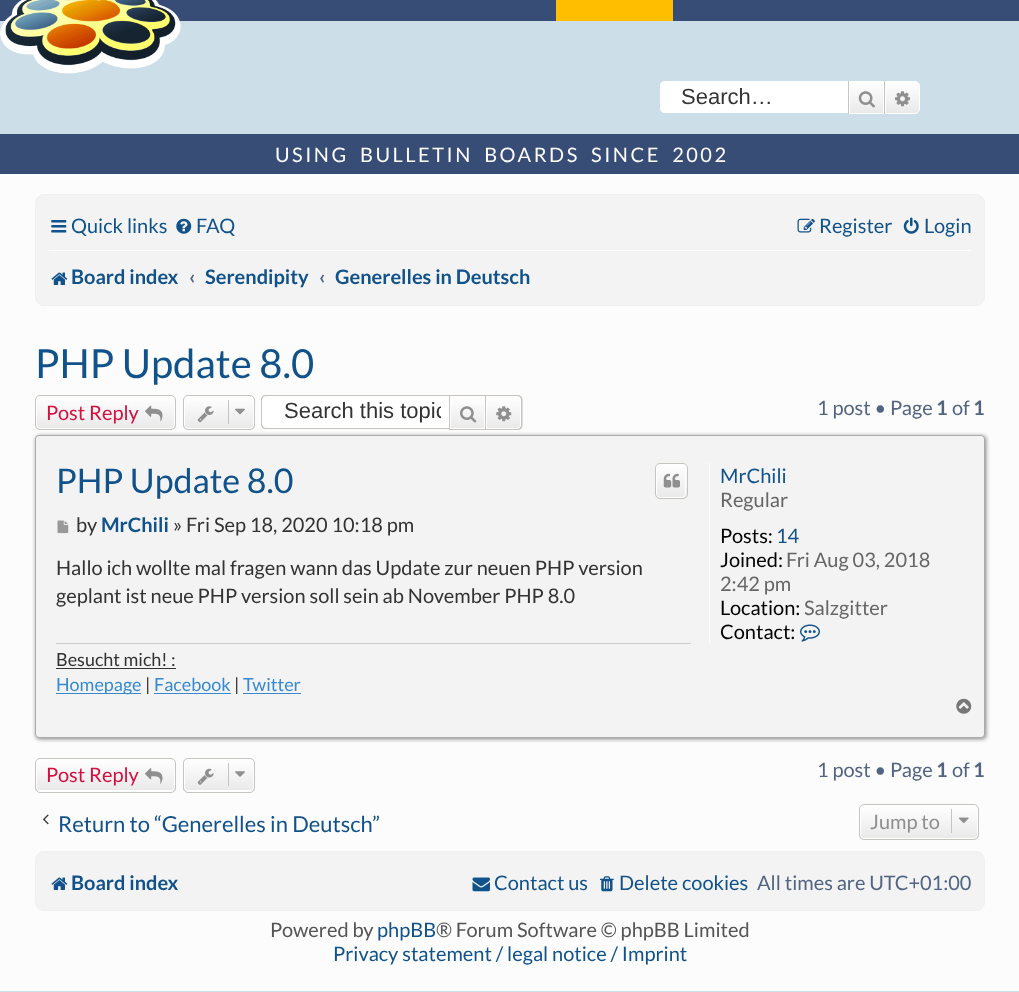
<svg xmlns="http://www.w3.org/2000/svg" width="1019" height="992">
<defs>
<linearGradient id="g1" gradientUnits="userSpaceOnUse" x1="866" y1="81" x2="866" y2="114"><stop offset="0" stop-color="#fff"/><stop offset="1" stop-color="#e9e9e9"/></linearGradient>
<linearGradient id="g2" gradientUnits="userSpaceOnUse" x1="903" y1="81" x2="903" y2="114"><stop offset="0" stop-color="#fff"/><stop offset="1" stop-color="#e9e9e9"/></linearGradient>
<clipPath id="clip1"><rect x="35" y="395" width="141" height="35" rx="5"/></clipPath>
<linearGradient id="g3" gradientUnits="userSpaceOnUse" x1="106" y1="396" x2="106" y2="429"><stop offset="0" stop-color="#fff"/><stop offset="1" stop-color="#e9e9e9"/></linearGradient>
<clipPath id="clip2"><rect x="183" y="395" width="72" height="35" rx="5"/></clipPath>
<linearGradient id="g4" gradientUnits="userSpaceOnUse" x1="219" y1="396" x2="219" y2="429"><stop offset="0" stop-color="#fff"/><stop offset="1" stop-color="#e9e9e9"/></linearGradient>
<clipPath id="clip3"><rect x="284" y="399" width="157" height="26"/></clipPath>
<linearGradient id="g5" gradientUnits="userSpaceOnUse" x1="468" y1="396" x2="468" y2="429"><stop offset="0" stop-color="#fff"/><stop offset="1" stop-color="#e9e9e9"/></linearGradient>
<linearGradient id="g6" gradientUnits="userSpaceOnUse" x1="504" y1="396" x2="504" y2="429"><stop offset="0" stop-color="#fff"/><stop offset="1" stop-color="#e9e9e9"/></linearGradient>
<clipPath id="clip4"><rect x="655" y="463" width="33" height="36" rx="5"/></clipPath>
<linearGradient id="g7" gradientUnits="userSpaceOnUse" x1="671" y1="464" x2="671" y2="498"><stop offset="0" stop-color="#fff"/><stop offset="1" stop-color="#e9e9e9"/></linearGradient>
<clipPath id="clip5"><rect x="35" y="758" width="141" height="35" rx="5"/></clipPath>
<linearGradient id="g8" gradientUnits="userSpaceOnUse" x1="106" y1="759" x2="106" y2="791"><stop offset="0" stop-color="#fff"/><stop offset="1" stop-color="#e9e9e9"/></linearGradient>
<linearGradient id="g9" gradientUnits="userSpaceOnUse" x1="106" y1="791" x2="106" y2="824"><stop offset="0" stop-color="#fff"/><stop offset="1" stop-color="#e9e9e9"/></linearGradient>
<clipPath id="clip6"><rect x="183" y="758" width="72" height="35" rx="5"/></clipPath>
<linearGradient id="g10" gradientUnits="userSpaceOnUse" x1="219" y1="759" x2="219" y2="791"><stop offset="0" stop-color="#fff"/><stop offset="1" stop-color="#e9e9e9"/></linearGradient>
<linearGradient id="g11" gradientUnits="userSpaceOnUse" x1="219" y1="791" x2="219" y2="824"><stop offset="0" stop-color="#fff"/><stop offset="1" stop-color="#e9e9e9"/></linearGradient>
<clipPath id="clip7"><rect x="859" y="804" width="120" height="36" rx="5"/></clipPath>
<linearGradient id="g12" gradientUnits="userSpaceOnUse" x1="919" y1="805" x2="919" y2="839"><stop offset="0" stop-color="#fff"/><stop offset="1" stop-color="#e9e9e9"/></linearGradient>
</defs>
<rect width="100%" height="100%" fill="#ccdee7"/>
<rect width="1019" height="21" fill="#374d76"/>
<image x="0" y="0" width="181" height="74" href="media/1.png"/>
<rect x="556" width="117" height="21" fill="#ffbf00"/>
<path d="M665 81h183v32h-183c-3 0-5-2-5-5v-22c0-3 2-5 5-5z" fill="#fff"/>
<text x="681" y="104" style="font-family:Liberation Sans;font-size:22px;fill:#333">Search…</text>
<rect x="850" y="82" width="33" height="31" fill="url(#g1)"/>
<rect x="849.5" y="81.5" width="34" height="32" fill="none" stroke="#fff"/>
<rect x="884" y="81" width="1" height="33" fill="#c7c3bf"/>
<rect x="848" y="81" width="1" height="33" fill="#c7c3bf"/>
<image x="858" y="91" width="17" height="17" href="media/2.png"/>
<path d="M885.5 81.5h29.5c2.5 0 4.5 2 4.5 4.5v23c0 2.5-2 4.5-4.5 4.5h-29.5z" fill="url(#g2)" stroke="#fff"/>
<image x="895" y="91" width="15" height="16" href="media/3.png"/>
<rect y="134" width="1019" height="40" fill="#374d76"/>
<text x="275" y="162" word-spacing="5" style="font-family:Lato;font-size:20px;letter-spacing:2.5px;fill:#fcfcfc">USING BULLETIN BOARDS SINCE 2002</text>
<rect y="174" width="1019" height="817" fill="#fcfcfc"/>
<rect x="35.5" y="194.5" width="949" height="111" rx="8.5" fill="#f3f3f3" stroke="#f0f0f0"/>
<image x="51" y="220" width="16" height="13" href="media/4.png"/>
<text x="71" y="233" style="font-family:Lato;font-size:20px;fill:#105289">Quick links</text>
<image x="176" y="218" width="16" height="16" href="media/5.png"/>
<text x="196" y="233" style="font-family:Lato;font-size:20px;fill:#105289">FAQ</text>
<image x="797" y="218" width="18" height="15" href="media/6.png"/>
<text x="819" y="233" style="font-family:Lato;font-size:20px;fill:#105289">Register</text>
<image x="903" y="217" width="16" height="17" href="media/7.png"/>
<text x="924" y="233" style="font-family:Lato;font-size:20px;fill:#105289">Login</text>
<rect x="49" y="250" width="922" height="1" fill="#fff"/>
<image x="51" y="272" width="17" height="13" href="media/8.png"/>
<text x="71" y="284" style="font-family:Lato;font-size:20px;font-weight:bold;fill:#105289">Board index</text>
<text x="189" y="284" style="font-family:Lato;font-size:20px;font-weight:bold;fill:#536482">‹</text>
<text x="205" y="284" style="font-family:Lato;font-size:20px;font-weight:bold;fill:#105289">Serendipity</text>
<text x="319" y="284" style="font-family:Lato;font-size:20px;font-weight:bold;fill:#536482">‹</text>
<text x="335" y="284" style="font-family:Lato;font-size:20px;font-weight:bold;fill:#105289">Generelles in Deutsch</text>
<text x="35" y="378" style="font-family:Lato;font-size:40px;fill:#105289">PHP Update 8.0</text>
<g clip-path="url(#clip1)">
<rect x="35" y="396" width="141" height="33" fill="url(#g3)"/>
</g>
<rect x="36.5" y="396.5" width="138" height="32" rx="3.5" fill="none" stroke="#fff"/>
<rect x="35.5" y="395.5" width="140" height="34" rx="4.5" fill="none" stroke="#c7c3bf"/>
<text x="46" y="420" style="font-family:Lato;font-size:20px;fill:#d31141">Post Reply</text>
<image x="145" y="405" width="18" height="17" href="media/9.png"/>
<g clip-path="url(#clip2)">
<rect x="183" y="396" width="72" height="33" fill="url(#g4)"/>
</g>
<rect x="184.5" y="396.5" width="69" height="32" rx="3.5" fill="none" stroke="#fff"/>
<rect x="183.5" y="395.5" width="71" height="34" rx="4.5" fill="none" stroke="#c7c3bf"/>
<image x="197" y="406" width="17" height="17" href="media/10.png"/>
<rect x="228" y="400" width="1" height="24" fill="#c7c3bf"/>
<image x="235" y="408" width="10" height="7" href="media/11.png"/>
<path d="M267 396h182v32h-182c-2 0-4-2-4-4v-24c0-2 2-4 4-4z" fill="#fff"/>
<path d="M266 395h183v34h-183c-3 0-5-2-5-5v-24c0-3 2-5 5-5zm0 1h183v32h-183c-2 0-4-2-4-4v-24c0-2 2-4 4-4z" fill="#c7c3bf" fill-rule="evenodd"/>
<g clip-path="url(#clip3)">
<text x="284" y="418" style="font-family:Liberation Sans;font-size:22px;fill:#333">Search this topic</text>
</g>
<rect x="451" y="404" width="33" height="24" fill="url(#g5)"/>
<rect x="450.5" y="396.5" width="34" height="32" fill="none" stroke="#fff"/>
<rect x="449.5" y="395.5" width="36" height="34" fill="none" stroke="#c7c3bf"/>
<image x="460" y="406" width="17" height="17" href="media/12.png"/>
<path d="M486.5 396.5h30.5c2 0 3.5 1.5 3.5 3.5v25c0 2-1.5 3.5-3.5 3.5h-30.5z" fill="url(#g6)" stroke="#fff"/>
<path d="M486 395h31.5c3 0 5 2 5 5v25c0 3-2 5-5 5h-31.5zm0 1h31.5c2 0 3.5 2 3.5 4v25c0 2-1.5 4-3.5 4h-31.5z" fill="#c7c3bf" fill-rule="evenodd"/>
<image x="496" y="406" width="16" height="16" href="media/13.png"/>
<text x="817" y="415" style="font-family:Lato;font-size:20px;fill:#536482">1 post • Page</text>
<text x="936" y="415" style="font-family:Lato;font-size:20px;font-weight:bold;fill:#536482">1</text>
<text x="952" y="415" style="font-family:Lato;font-size:20px;fill:#536482">of</text>
<text x="973" y="415" style="font-family:Lato;font-size:20px;font-weight:bold;fill:#536482">1</text>
<rect x="36" y="436" width="950" height="303" rx="4" fill="#808080" filter="blur(2px)"/>
<rect x="35.5" y="435.5" width="949" height="302" rx="3.5" fill="#f3f3f3" stroke="#ababab"/>
<text x="56" y="493" style="font-family:Lato;font-size:34px;fill:#105289">PHP Update 8.0</text>
<g clip-path="url(#clip4)">
<rect x="655" y="464" width="33" height="34" fill="url(#g7)"/>
</g>
<rect x="656.5" y="464.5" width="29" height="33" rx="3.5" fill="none" stroke="#fff"/>
<rect x="655.5" y="463.5" width="32" height="35" rx="4.5" fill="none" stroke="#c7c3bf"/>
<image x="663" y="473" width="17" height="15" href="media/14.png"/>
<image x="57" y="520" width="12" height="14" href="media/15.png"/>
<text x="76" y="532" style="font-family:Lato;font-size:20px;fill:#333">by</text>
<text x="101" y="532" style="font-family:Lato;font-size:20px;font-weight:bold;fill:#105289">MrChili</text>
<text x="173" y="532" style="font-family:Lato;font-size:20px;fill:#333">» Fri Sep 18, 2020 10:18 pm</text>
<text x="56" y="575" style="font-family:Lato;font-size:20px;fill:#333">Hallo ich wollte mal fragen wann das Update zur neuen PHP version</text>
<text x="56" y="603" style="font-family:Lato;font-size:20px;fill:#333">geplant ist neue PHP version soll sein ab November PHP 8.0</text>
<rect x="56" y="643" width="635" height="1" fill="#ccc"/>
<text x="56" y="666" style="font-family:Lato;font-size:18px;fill:#333">Besucht mich! :</text>
<rect x="56" y="668" width="120" height="1" fill="#333"/>
<rect x="56" y="693" width="85" height="1" fill="#368ad2"/>
<text x="56" y="691" style="font-family:Lato;font-size:18px;fill:#368ad2">Homepage</text>
<text x="145" y="691" style="font-family:Lato;font-size:18px;fill:#333">|</text>
<text x="154" y="691" style="font-family:Lato;font-size:18px;fill:#368ad2">Facebook</text>
<rect x="154" y="693" width="77" height="1" fill="#368ad2"/>
<text x="234" y="691" style="font-family:Lato;font-size:18px;fill:#333">|</text>
<text x="243" y="691" style="font-family:Lato;font-size:18px;fill:#368ad2">Twitter</text>
<rect x="243" y="693" width="58" height="1" fill="#368ad2"/>
<rect x="709" y="463" width="1" height="181" fill="#fff"/>
<text x="720" y="483" style="font-family:Lato;font-size:20px;fill:#105289">MrChili</text>
<text x="720" y="507" style="font-family:Lato;font-size:20px;fill:#666">Regular</text>
<text x="720" y="543" style="font-family:Lato;font-size:20px;fill:#000">Posts:</text>
<text x="776" y="543" style="font-family:Lato;font-size:20px;fill:#105289">14</text>
<text x="720" y="567" style="font-family:Lato;font-size:20px;fill:#000">Joined:</text>
<text x="786" y="567" style="font-family:Lato;font-size:20px;fill:#666">Fri Aug 03, 2018</text>
<text x="720" y="591" style="font-family:Lato;font-size:20px;fill:#666">2:42 pm</text>
<text x="720" y="615" style="font-family:Lato;font-size:20px;fill:#000">Location:</text>
<text x="804" y="615" style="font-family:Lato;font-size:20px;fill:#666">Salzgitter</text>
<text x="720" y="639" style="font-family:Lato;font-size:20px;fill:#000">Contact:</text>
<image x="800" y="624" width="20" height="18" href="media/16.png"/>
<image x="956" y="698" width="16" height="16" href="media/17.png"/>
<g clip-path="url(#clip5)">
<rect x="35" y="759" width="141" height="32" fill="url(#g8)"/>
<rect x="35" y="791" width="141" height="2" fill="url(#g9)"/>
</g>
<rect x="36.5" y="759.5" width="138" height="31" rx="3.5" fill="none" stroke="#fff"/>
<rect x="35.5" y="758.5" width="140" height="34" rx="4.5" fill="none" stroke="#c7c3bf"/>
<text x="46" y="782" style="font-family:Lato;font-size:20px;fill:#d31141">Post Reply</text>
<image x="145" y="768" width="18" height="16" href="media/18.png"/>
<g clip-path="url(#clip6)">
<rect x="183" y="759" width="72" height="32" fill="url(#g10)"/>
<rect x="183" y="791" width="72" height="2" fill="url(#g11)"/>
</g>
<rect x="184.5" y="759.5" width="69" height="31" rx="3.5" fill="none" stroke="#fff"/>
<rect x="183.5" y="758.5" width="71" height="34" rx="4.5" fill="none" stroke="#c7c3bf"/>
<image x="197" y="768" width="17" height="17" href="media/19.png"/>
<rect x="228" y="763" width="1" height="23" fill="#c7c3bf"/>
<image x="235" y="771" width="10" height="6" href="media/20.png"/>
<text x="817" y="777" style="font-family:Lato;font-size:20px;fill:#536482">1 post • Page</text>
<text x="936" y="777" style="font-family:Lato;font-size:20px;font-weight:bold;fill:#536482">1</text>
<text x="952" y="777" style="font-family:Lato;font-size:20px;fill:#536482">of</text>
<text x="973" y="777" style="font-family:Lato;font-size:20px;font-weight:bold;fill:#536482">1</text>
<image x="43" y="814" width="6" height="11" href="media/21.png"/>
<text x="58" y="832" style="font-family:Lato;font-size:22px;fill:#105289">Return to “Generelles in Deutsch”</text>
<g clip-path="url(#clip7)">
<rect x="859" y="805" width="120" height="34" fill="url(#g12)"/>
</g>
<rect x="860.5" y="805.5" width="117" height="33" rx="3.5" fill="none" stroke="#fff"/>
<rect x="859.5" y="804.5" width="119" height="35" rx="4.5" fill="none" stroke="#c7c3bf"/>
<text x="870" y="829" style="font-family:Lato;font-size:20px;fill:#8f8f8f">Jump to</text>
<rect x="951" y="809" width="1" height="24" fill="#c7c3bf"/>
<image x="958" y="817" width="11" height="6" href="media/22.png"/>
<rect x="35.5" y="851.5" width="949" height="59" rx="8.5" fill="#f3f3f3" stroke="#f0f0f0"/>
<image x="51" y="877" width="17" height="13" href="media/8.png"/>
<text x="71" y="890" style="font-family:Lato;font-size:20px;font-weight:bold;fill:#105289">Board index</text>
<image x="472" y="877" width="18" height="15" href="media/23.png"/>
<text x="494" y="890" style="font-family:Lato;font-size:20px;fill:#105289">Contact us</text>
<image x="600" y="876" width="14" height="16" href="media/24.png"/>
<text x="619" y="890" style="font-family:Lato;font-size:20px;fill:#105289">Delete cookies</text>
<text x="757" y="890" style="font-family:Lato;font-size:20px;fill:#536482">All times are UTC+01:00</text>
<text x="270" y="937" style="font-family:Lato;font-size:20px;fill:#555">Powered by</text>
<text x="377" y="937" style="font-family:Lato;font-size:20px;fill:#105289">phpBB</text>
<text x="436" y="937" style="font-family:Lato;font-size:20px;fill:#555">® Forum Software © phpBB Limited</text>
<text x="333" y="961" style="font-family:Lato;font-size:20px;fill:#105289">Privacy statement / legal notice / Imprint</text>
</svg>
